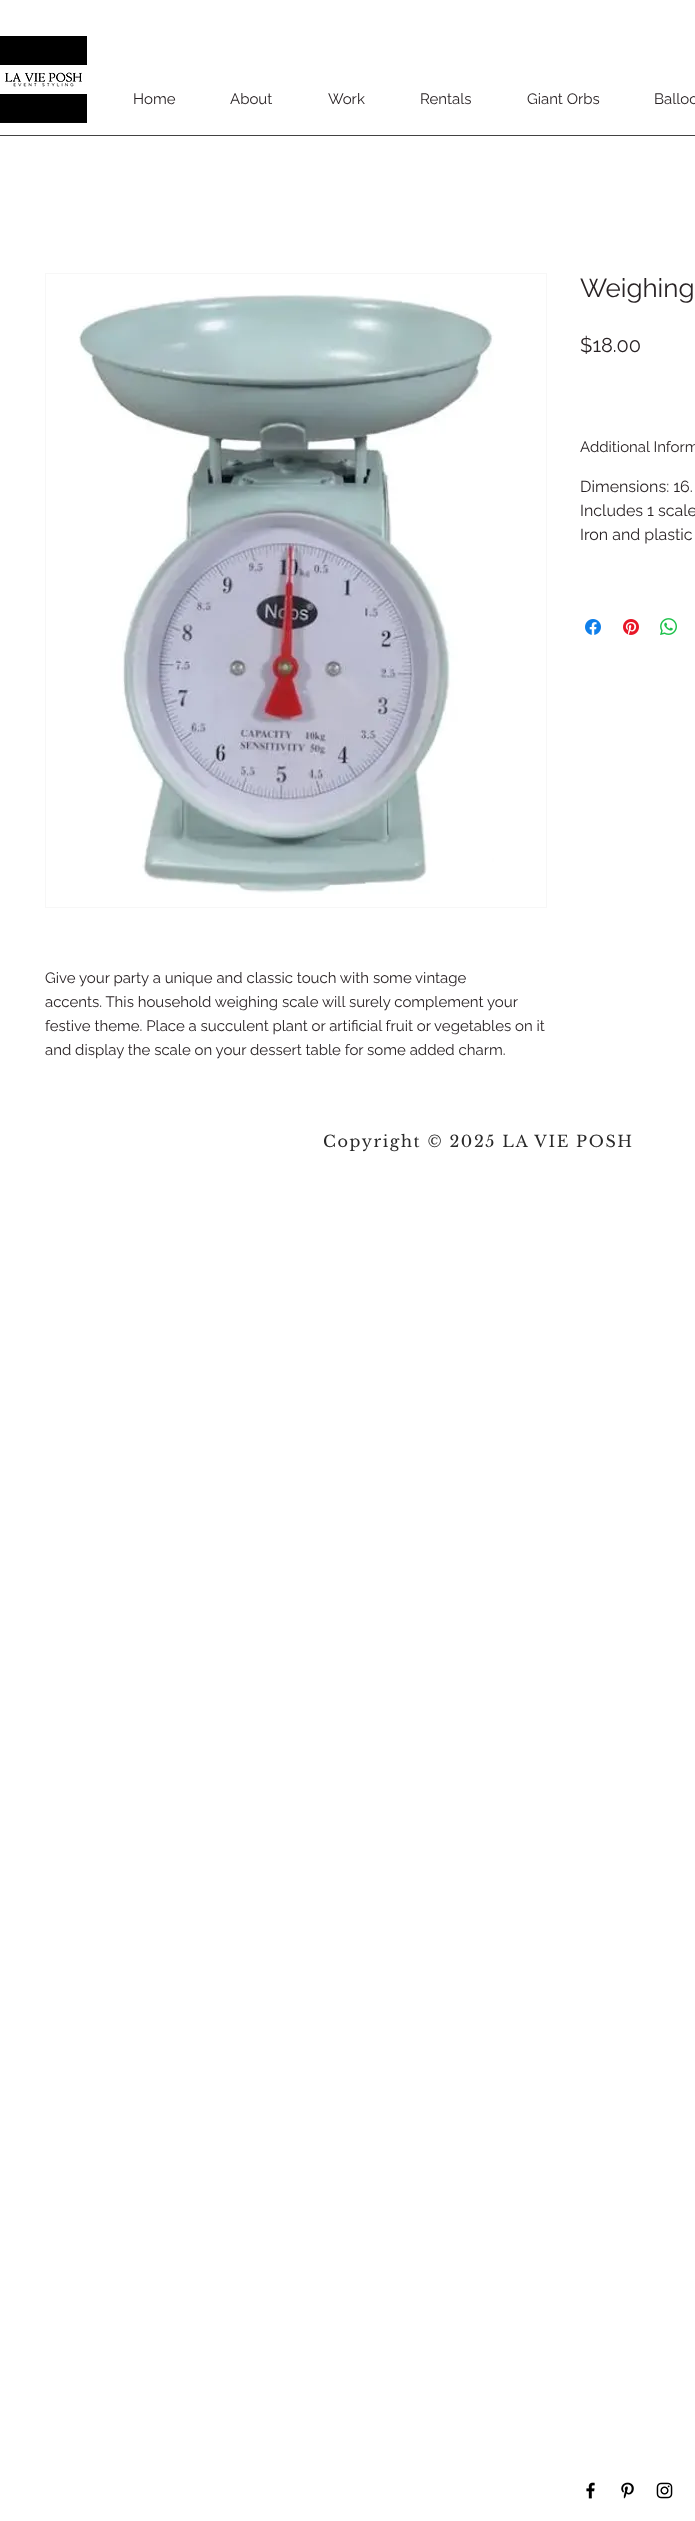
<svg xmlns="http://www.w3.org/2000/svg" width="695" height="2521">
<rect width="100%" height="100%" fill="#fff"/>
<image x="0" y="36" width="87" height="87" href="media/1.png"/>
<text x="133" y="104" style="font-family:Raleway;font-size:15px;fill:#292325">Home</text>
<text x="230" y="104" style="font-family:Raleway;font-size:15px;fill:#292325">About</text>
<text x="328" y="104" style="font-family:Raleway;font-size:15px;fill:#292325">Work</text>
<text x="420" y="104" style="font-family:Raleway;font-size:15px;fill:#292325">Rentals</text>
<text x="527" y="104" style="font-family:Raleway;font-size:15px;fill:#292325">Giant Orbs</text>
<text x="654" y="104" style="font-family:Raleway;font-size:15px;fill:#292325">Balloo</text>
<rect y="135" width="695" height="1" fill="#424242"/>
<text x="580" y="297" style="font-family:Raleway;font-size:26px;fill:#292325">Weighing</text>
<text x="580" y="352" style="font-family:Raleway;font-size:20px;fill:#292325">$18.00</text>
<text x="580" y="452" style="font-family:Raleway;font-size:15px;fill:#292325">Additional Inform</text>
<text x="580" y="492" style="font-family:Raleway;font-size:16px;fill:#292325">Dimensions: 16.</text>
<text x="580" y="516" style="font-family:Raleway;font-size:16px;fill:#292325">Includes 1 scale</text>
<text x="580" y="540" style="font-family:Raleway;font-size:16px;fill:#292325">Iron and plastic</text>
<image x="585" y="619" width="16" height="16" href="media/2.png"/>
<image x="623" y="619" width="16" height="16" href="media/3.png"/>
<image x="660" y="618" width="17" height="17" href="media/4.png"/>
<rect x="45.5" y="273.5" width="501" height="634" fill="none" stroke="#f7f7f7"/>
<image x="78" y="294" width="416" height="600" href="media/5.png"/>
<text x="45" y="983" style="font-family:Raleway;font-size:15px;fill:#292325">Give your party a unique and classic touch with some vintage</text>
<text x="45" y="1007" style="font-family:Raleway;font-size:15px;fill:#292325">accents. This household weighing scale will surely complement your</text>
<text x="45" y="1031" style="font-family:Raleway;font-size:15px;fill:#292325">festive theme. Place a succulent plant or artificial fruit or vegetables on it</text>
<text x="45" y="1055" style="font-family:Raleway;font-size:15px;fill:#292325">and display the scale on your dessert table for some added charm.</text>
<text x="323" y="1147" style="font-family:Libre Baskerville;font-size:16px;letter-spacing:1.6px;fill:#292929">Copyright © 2025 LA VIE POSH</text>
<image x="586" y="2482" width="9" height="17" href="media/6.png"/>
<image x="621" y="2482" width="13" height="17" href="media/7.png"/>
<image x="656" y="2482" width="17" height="17" href="media/8.png"/>
</svg>
